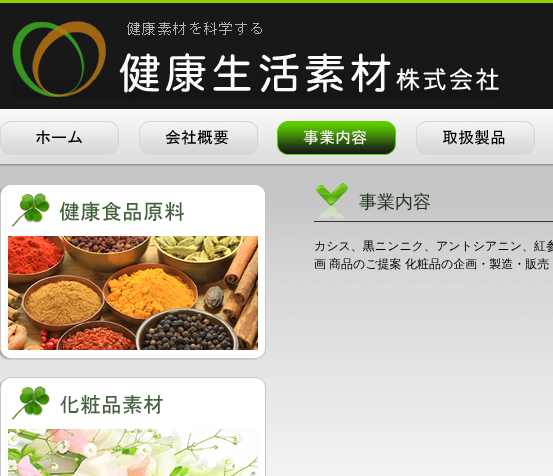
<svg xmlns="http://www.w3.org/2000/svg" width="553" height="476">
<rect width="100%" height="100%" fill="#fff"/>
<rect y="3" width="553" height="106" fill="#181818"/>
<rect width="553" height="3" fill="#96ce00"/>
<image x="11" y="21" width="488" height="78" href="media/1.png"/>
<image x="0" y="110" width="553" height="58" href="media/2.png"/>
<image x="0" y="121" width="119" height="34" href="media/3.png"/>
<image x="139" y="121" width="119" height="34" href="media/4.png"/>
<image x="275" y="119" width="127" height="36" href="media/5.png"/>
<image x="416" y="121" width="119" height="34" href="media/6.png"/>
<image x="0" y="168" width="553" height="308" href="media/7.png"/>
<image x="0" y="185" width="266" height="51" href="media/8.png"/>
<image x="0" y="236" width="266" height="114" href="media/9.png"/>
<image x="8" y="236" width="250" height="114" href="media/10.png"/>
<image x="0" y="350" width="266" height="10" href="media/11.png"/>
<image x="0" y="377" width="266" height="52" href="media/12.png"/>
<image x="0" y="429" width="266" height="47" href="media/13.png"/>
<image x="8" y="429" width="250" height="47" href="media/14.png"/>
<image x="316" y="183" width="32" height="37" href="media/15.png"/>
<text x="359" y="208" style="font-family:WenQuanYi Zen Hei;font-size:18px;font-weight:500;fill:#1d3319">事業内容</text>
<rect x="314" y="221" width="239" height="1" fill="#343434"/>
<text x="314" y="250" style="font-family:WenQuanYi Zen Hei;font-size:12px;font-weight:500;fill:#000">カシス、黒ニンニク、アントシアニン、紅参</text>
<text x="314" y="268" style="font-family:WenQuanYi Zen Hei;font-size:12px;font-weight:500;fill:#000">画</text>
<text x="329" y="268" style="font-family:WenQuanYi Zen Hei;font-size:12px;font-weight:500;fill:#000">商品のご提案</text>
<text x="405" y="268" style="font-family:WenQuanYi Zen Hei;font-size:12px;font-weight:500;fill:#000">化粧品の企画・製造・販売</text>
</svg>
